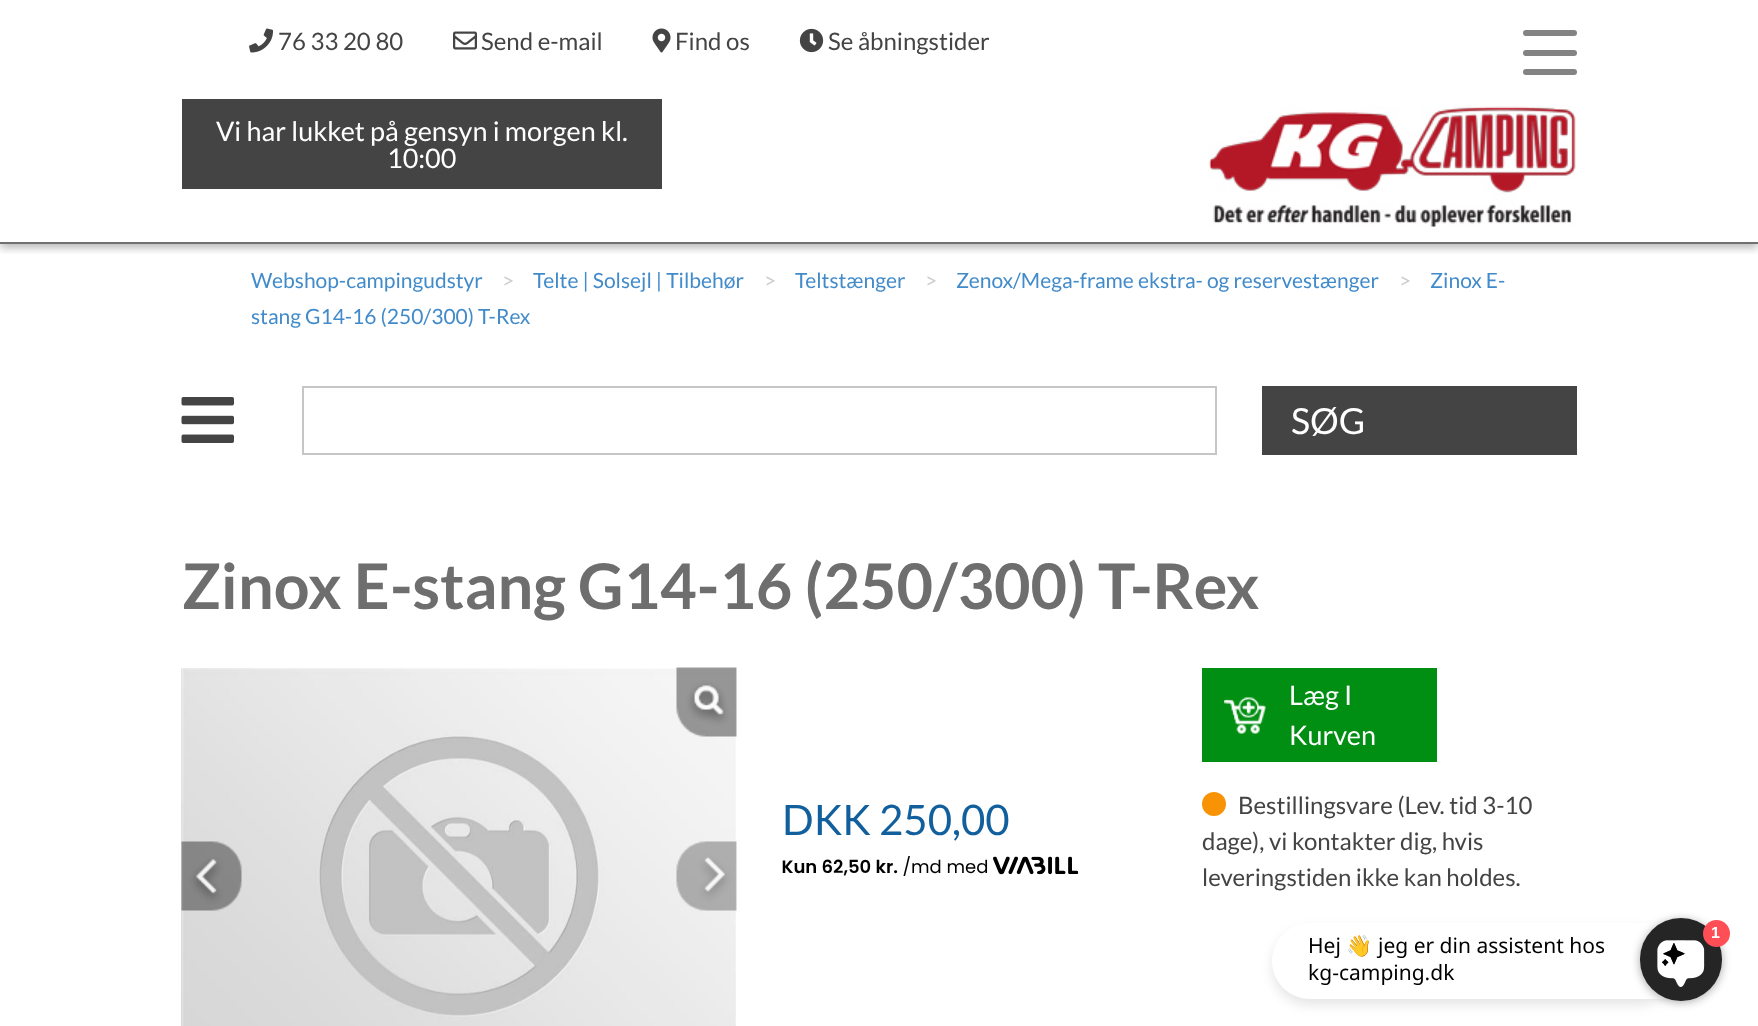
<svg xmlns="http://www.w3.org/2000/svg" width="1758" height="1026">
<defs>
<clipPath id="clip1"><rect x="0" y="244" width="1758" height="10"/></clipPath>
</defs>
<rect width="100%" height="100%" fill="#fff"/>
<g clip-path="url(#clip1)">
<rect y="5" width="1758" height="243" fill="#00000045" filter="blur(4.5px)"/>
</g>
<rect y="242" width="1758" height="2" fill="#707070"/>
<image x="249" y="28" width="24" height="25" href="media/1.png"/>
<text x="278" y="50" style="font-family:Lato;font-size:24px;fill:#444">76 33 20 80</text>
<image x="453" y="31" width="24" height="19" href="media/2.png"/>
<text x="481" y="50" style="font-family:Lato;font-size:24px;fill:#444">Send e-mail</text>
<image x="652" y="28" width="19" height="25" href="media/3.png"/>
<text x="675" y="50" style="font-family:Lato;font-size:24px;fill:#444">Find os</text>
<image x="799" y="28" width="25" height="25" href="media/4.png"/>
<text x="828" y="50" style="font-family:Lato;font-size:24px;fill:#444">Se åbningstider</text>
<rect x="1523" y="30" width="54" height="6" rx="3" fill="#838383"/>
<rect x="1523" y="50" width="54" height="6" rx="3" fill="#838383"/>
<rect x="1523" y="69" width="54" height="6" rx="3" fill="#838383"/>
<rect x="182" y="99" width="480" height="90" fill="#444"/>
<text x="216" y="141" style="font-family:Lato;font-size:27px;fill:#fff">Vi har lukket på gensyn i morgen kl.</text>
<text x="387" y="168" style="font-family:Lato;font-size:27px;fill:#fff">10:00</text>
<image x="1208" y="106" width="368" height="121" href="media/5.png"/>
<text x="251" y="288" style="font-family:Lato;font-size:21px;fill:#428bca">Webshop-campingudstyr</text>
<text x="502" y="288" style="font-family:Lato;font-size:21px;fill:#ccc">&gt;</text>
<text x="533" y="288" style="font-family:Lato;font-size:21px;fill:#428bca">Telte | Solsejl | Tilbehør</text>
<text x="764" y="288" style="font-family:Lato;font-size:21px;fill:#ccc">&gt;</text>
<text x="795" y="288" style="font-family:Lato;font-size:21px;fill:#428bca">Teltstænger</text>
<text x="925" y="288" style="font-family:Lato;font-size:21px;fill:#ccc">&gt;</text>
<text x="956" y="288" style="font-family:Lato;font-size:21px;fill:#428bca">Zenox/Mega-frame ekstra- og reservestænger</text>
<text x="1399" y="288" style="font-family:Lato;font-size:21px;fill:#ccc">&gt;</text>
<text x="1430" y="288" style="font-family:Lato;font-size:21px;fill:#428bca">Zinox E-</text>
<text x="251" y="324" style="font-family:Lato;font-size:21px;fill:#428bca">stang G14-16 (250/300) T-Rex</text>
<image x="181" y="397" width="53" height="46" href="media/6.png"/>
<rect x="303" y="387" width="913" height="67" fill="none" stroke="#c6c6c6" stroke-width="2"/>
<rect x="1262" y="386" width="315" height="69" fill="#444"/>
<text x="1291" y="434" style="font-family:Lato;font-size:36px;fill:#fff">SØG</text>
<text x="182" y="609" style="font-family:Lato;font-size:63px;font-weight:bold;fill:#6e6e6e">Zinox E-stang G14-16 (250/300) T-Rex</text>
<image x="181" y="668" width="555" height="358" href="media/8.png"/>
<image x="676" y="667" width="61" height="70" href="media/7.png"/>
<image x="181" y="841" width="61" height="70" href="media/9.png"/>
<image x="676" y="841" width="61" height="70" href="media/10.png"/>
<rect x="1202" y="668" width="235" height="94" fill="#008f13"/>
<image x="1224" y="697" width="42" height="37" href="media/11.png"/>
<text x="1289" y="705" style="font-family:Lato;font-size:27px;fill:#fff">Læg I</text>
<text x="1289" y="745" style="font-family:Lato;font-size:27px;fill:#fff">Kurven</text>
<text x="782" y="835" style="font-family:Lato;font-size:42px;fill:#11609d">DKK 250,00</text>
<image x="782" y="856" width="297" height="20" href="media/12.png"/>
<circle cx="1214" cy="804" r="12" fill="#f89306"/>
<text x="1238" y="814" style="font-family:Lato;font-size:24px;fill:#444">Bestillingsvare (Lev. tid 3-10</text>
<text x="1202" y="850" style="font-family:Lato;font-size:24px;fill:#444">dage), vi kontakter dig, hvis</text>
<text x="1202" y="886" style="font-family:Lato;font-size:24px;fill:#444">leveringstiden ikke kan holdes.</text>
<rect x="1272" y="929" width="405" height="76" rx="38" fill="#0000001a" filter="blur(6px)"/>
<path d="M1310 923h367v76h-367c-21 0-38-17-38-38c0-21 17-38 38-38z" fill="#fff"/>
<rect x="1640" y="920" width="82" height="82" rx="41" fill="#00000059" filter="blur(5px)"/>
<rect x="1640" y="918" width="82" height="83" rx="41" fill="#252525"/>
<image x="1657" y="940" width="48" height="47" href="media/13.png"/>
<circle cx="1716.5" cy="933.5" r="13.5" fill="#ff4e55"/>
<text x="1711" y="938" style="font-family:Liberation Sans;font-size:16px;font-weight:bold;fill:#fff">1</text>
<text x="1308" y="953" style="font-family:Noto Sans;font-size:21px;fill:#000">Hej</text>
<text x="1346" y="953" style="font-family:Noto Color Emoji;font-size:21px;fill:#000">👋</text>
<text x="1378" y="953" style="font-family:Noto Sans;font-size:21px;fill:#000">jeg er din assistent hos</text>
<text x="1308" y="980" style="font-family:Noto Sans;font-size:21px;fill:#000">kg-camping.dk</text>
</svg>
